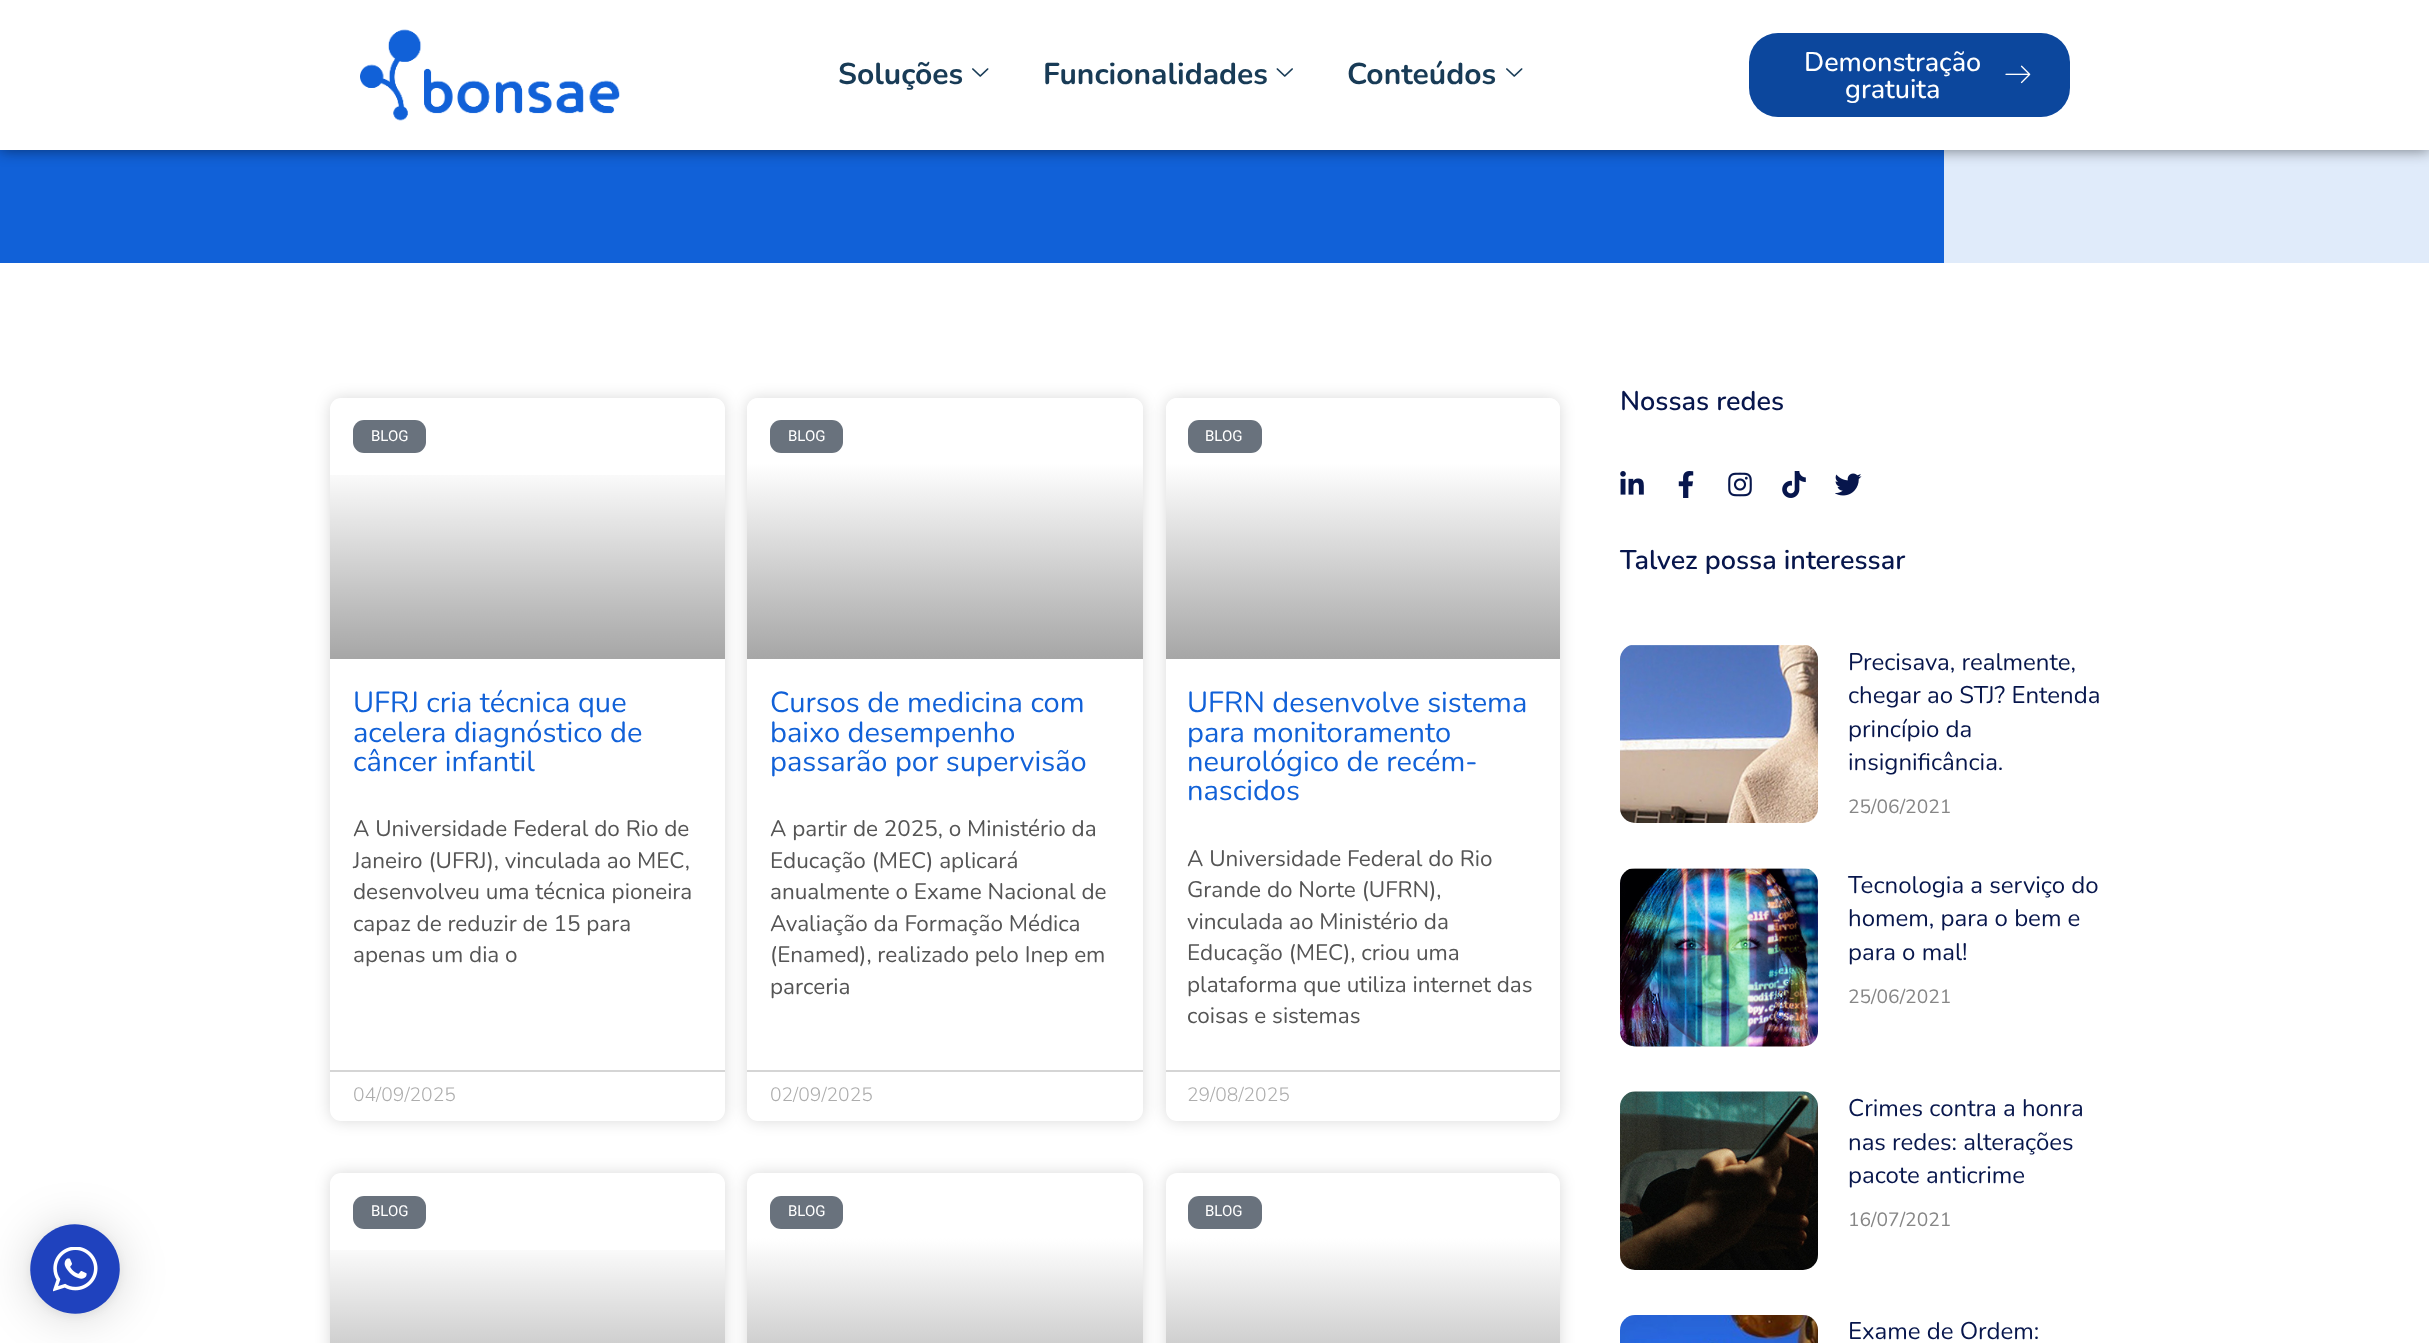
<svg xmlns="http://www.w3.org/2000/svg" width="2429" height="1343">
<defs>
<linearGradient id="g1" gradientUnits="userSpaceOnUse" x1="527" y1="659" x2="527" y2="398"><stop offset="0" stop-color="#000" stop-opacity="0.35"/><stop offset="0.75" stop-color="#000" stop-opacity="0"/></linearGradient>
<linearGradient id="g2" gradientUnits="userSpaceOnUse" x1="945" y1="659" x2="945" y2="398"><stop offset="0" stop-color="#a6a6a6"/><stop offset="0.75" stop-color="#fff"/></linearGradient>
<linearGradient id="g3" gradientUnits="userSpaceOnUse" x1="1363" y1="659" x2="1363" y2="398"><stop offset="0" stop-color="#a6a6a6"/><stop offset="0.75" stop-color="#fff"/></linearGradient>
<linearGradient id="g4" gradientUnits="userSpaceOnUse" x1="527" y1="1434" x2="527" y2="1173"><stop offset="0" stop-color="#000" stop-opacity="0.35"/><stop offset="0.75" stop-color="#000" stop-opacity="0"/></linearGradient>
<linearGradient id="g5" gradientUnits="userSpaceOnUse" x1="945" y1="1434" x2="945" y2="1173"><stop offset="0" stop-color="#a6a6a6"/><stop offset="0.75" stop-color="#fff"/></linearGradient>
<linearGradient id="g6" gradientUnits="userSpaceOnUse" x1="1363" y1="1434" x2="1363" y2="1173"><stop offset="0" stop-color="#a6a6a6"/><stop offset="0.75" stop-color="#fff"/></linearGradient>
</defs>
<rect width="100%" height="100%" fill="#fff"/>
<rect x="1944" y="150" width="485" height="113" fill="#e0ebfa"/>
<rect y="150" width="1944" height="113" fill="#1161d8"/>
<rect width="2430" height="150" fill="#00000080" filter="blur(7.5px)"/>
<rect width="2429" height="150" fill="#fff"/>
<image x="360" y="29" width="260" height="92" href="media/1.png"/>
<text x="838" y="84" style="font-family:Nunito;font-size:30px;font-weight:bold;fill:#183b56">Soluções</text>
<image x="972" y="68" width="17" height="9" href="media/2.png"/>
<text x="1043" y="84" style="font-family:Nunito;font-size:30px;font-weight:bold;fill:#183b56">Funcionalidades</text>
<image x="1276" y="68" width="17" height="9" href="media/3.png"/>
<text x="1347" y="84" style="font-family:Nunito;font-size:30px;font-weight:bold;fill:#183b56">Conteúdos</text>
<image x="1506" y="68" width="17" height="9" href="media/2.png"/>
<rect x="1749" y="33" width="321" height="84" rx="29" fill="#0c479d"/>
<text x="1804" y="71" style="font-family:Nunito;font-size:27px;font-weight:500;fill:#fff">Demonstração</text>
<text x="1845" y="98" style="font-family:Nunito;font-size:27px;font-weight:500;fill:#fff">gratuita</text>
<image x="2005" y="65" width="26" height="19" href="media/4.png"/>
<rect x="30" y="1227" width="90" height="90" rx="45" fill="#00000029" filter="blur(24px)"/>
<rect x="30" y="1226" width="90" height="90" rx="45" fill="#0000000f" filter="blur(4.5px)"/>
<path d="M41 1240c16-19 44-21 63-5c19 16 21 44 5 63c-16 19-44 21-63 5c-19-16-21-44-5-63z" fill="#1f42be"/>
<image x="53" y="1247" width="45" height="45" href="media/5.png"/>
<rect x="330" y="398" width="395" height="723" rx="11" fill="#00000026" filter="blur(7.5px)"/>
<rect x="330" y="398" width="395" height="723" rx="11" fill="#fff"/>
<rect x="353" y="420" width="73" height="33" rx="11" fill="#69727d"/>
<text x="371" y="441" style="font-family:Roboto;font-size:15px;fill:#fff">BLOG</text>
<rect x="330" y="475" width="395" height="184" fill="url(#g1)"/>
<text x="353" y="712" style="font-family:Nunito;font-size:29px;fill:#1161d8">UFRJ cria técnica que</text>
<text x="353" y="742" style="font-family:Nunito;font-size:29px;fill:#1161d8">acelera diagnóstico de</text>
<text x="353" y="771" style="font-family:Nunito;font-size:29px;fill:#1161d8">câncer infantil</text>
<text x="353" y="836" style="font-family:Nunito;font-size:22.5px;fill:#555">A Universidade Federal do Rio de</text>
<text x="353" y="868" style="font-family:Nunito;font-size:22.5px;fill:#555">Janeiro (UFRJ), vinculada ao MEC,</text>
<text x="353" y="899" style="font-family:Nunito;font-size:22.5px;fill:#555">desenvolveu uma técnica pioneira</text>
<text x="353" y="931" style="font-family:Nunito;font-size:22.5px;fill:#555">capaz de reduzir de 15 para</text>
<text x="353" y="962" style="font-family:Nunito;font-size:22.5px;fill:#555">apenas um dia o</text>
<rect x="330" y="1070" width="395" height="2" fill="#d5d5d5"/>
<text x="353" y="1101" style="font-family:Nunito;font-size:19.25px;font-weight:300;fill:#adadad">04/09/2025</text>
<rect x="747" y="398" width="396" height="723" rx="11" fill="#00000026" filter="blur(7.5px)"/>
<rect x="747" y="398" width="396" height="723" rx="11" fill="#fff"/>
<path d="M758 398h374c6 0 11 5 11 11v250h-396v-250c0-6 5-11 11-11z" fill="url(#g2)"/>
<rect x="770" y="420" width="73" height="33" rx="11" fill="#69727d"/>
<text x="788" y="441" style="font-family:Roboto;font-size:15px;fill:#fff">BLOG</text>
<text x="770" y="712" style="font-family:Nunito;font-size:29px;fill:#1161d8">Cursos de medicina com</text>
<text x="770" y="742" style="font-family:Nunito;font-size:29px;fill:#1161d8">baixo desempenho</text>
<text x="770" y="771" style="font-family:Nunito;font-size:29px;fill:#1161d8">passarão por supervisão</text>
<text x="770" y="836" style="font-family:Nunito;font-size:22.5px;fill:#555">A partir de 2025, o Ministério da</text>
<text x="770" y="868" style="font-family:Nunito;font-size:22.5px;fill:#555">Educação (MEC) aplicará</text>
<text x="770" y="899" style="font-family:Nunito;font-size:22.5px;fill:#555">anualmente o Exame Nacional de</text>
<text x="770" y="931" style="font-family:Nunito;font-size:22.5px;fill:#555">Avaliação da Formação Médica</text>
<text x="770" y="962" style="font-family:Nunito;font-size:22.5px;fill:#555">(Enamed), realizado pelo Inep em</text>
<text x="770" y="994" style="font-family:Nunito;font-size:22.5px;fill:#555">parceria</text>
<rect x="747" y="1070" width="396" height="2" fill="#d5d5d5"/>
<text x="770" y="1101" style="font-family:Nunito;font-size:19.25px;font-weight:300;fill:#adadad">02/09/2025</text>
<rect x="1166" y="398" width="394" height="723" rx="11" fill="#00000026" filter="blur(7.5px)"/>
<rect x="1166" y="398" width="394" height="723" rx="11" fill="#fff"/>
<path d="M1177 398h372c6 0 11 5 11 11v250h-394v-250c0-6 5-11 11-11z" fill="url(#g3)"/>
<rect x="1188" y="420" width="74" height="33" rx="11" fill="#69727d"/>
<text x="1205" y="441" style="font-family:Roboto;font-size:15px;fill:#fff">BLOG</text>
<text x="1187" y="712" style="font-family:Nunito;font-size:29px;fill:#1161d8">UFRN desenvolve sistema</text>
<text x="1187" y="742" style="font-family:Nunito;font-size:29px;fill:#1161d8">para monitoramento</text>
<text x="1187" y="771" style="font-family:Nunito;font-size:29px;fill:#1161d8">neurológico de recém-</text>
<text x="1187" y="800" style="font-family:Nunito;font-size:29px;fill:#1161d8">nascidos</text>
<text x="1187" y="866" style="font-family:Nunito;font-size:22.5px;fill:#555">A Universidade Federal do Rio</text>
<text x="1187" y="897" style="font-family:Nunito;font-size:22.5px;fill:#555">Grande do Norte (UFRN),</text>
<text x="1187" y="929" style="font-family:Nunito;font-size:22.5px;fill:#555">vinculada ao Ministério da</text>
<text x="1187" y="960" style="font-family:Nunito;font-size:22.5px;fill:#555">Educação (MEC), criou uma</text>
<text x="1187" y="992" style="font-family:Nunito;font-size:22.5px;fill:#555">plataforma que utiliza internet das</text>
<text x="1187" y="1023" style="font-family:Nunito;font-size:22.5px;fill:#555">coisas e sistemas</text>
<rect x="1166" y="1070" width="394" height="2" fill="#d5d5d5"/>
<text x="1187" y="1101" style="font-family:Nunito;font-size:19.25px;font-weight:300;fill:#adadad">29/08/2025</text>
<rect x="330" y="1173" width="395" height="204" rx="11" fill="#00000026" filter="blur(7.5px)"/>
<rect x="330" y="1173" width="395" height="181" rx="11" fill="#fff"/>
<rect x="353" y="1196" width="73" height="33" rx="11" fill="#69727d"/>
<text x="371" y="1216" style="font-family:Roboto;font-size:15px;fill:#fff">BLOG</text>
<rect x="330" y="1250" width="395" height="93" fill="url(#g4)"/>
<rect x="747" y="1173" width="396" height="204" rx="11" fill="#00000026" filter="blur(7.5px)"/>
<path d="M758 1173h374c6 0 11 5 11 11v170h-396v-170c0-6 5-11 11-11z" fill="url(#g5)"/>
<rect x="770" y="1196" width="73" height="33" rx="11" fill="#69727d"/>
<text x="788" y="1216" style="font-family:Roboto;font-size:15px;fill:#fff">BLOG</text>
<rect x="1166" y="1173" width="394" height="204" rx="11" fill="#00000026" filter="blur(7.5px)"/>
<path d="M1177 1173h372c6 0 11 5 11 11v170h-394v-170c0-6 5-11 11-11z" fill="url(#g6)"/>
<rect x="1188" y="1196" width="74" height="33" rx="11" fill="#69727d"/>
<text x="1205" y="1216" style="font-family:Roboto;font-size:15px;fill:#fff">BLOG</text>
<text x="1620" y="410" style="font-family:Nunito;font-size:27px;font-weight:600;fill:#07164c">Nossas redes</text>
<image x="1620" y="471" width="24" height="24" href="media/6.png"/>
<image x="1678" y="471" width="16" height="27" href="media/7.png"/>
<image x="1728" y="472" width="24" height="25" href="media/8.png"/>
<image x="1782" y="471" width="24" height="27" href="media/9.png"/>
<image x="1835" y="473" width="27" height="23" href="media/10.png"/>
<text x="1620" y="569" style="font-family:Nunito;font-size:27px;font-weight:600;fill:#07164c">Talvez possa interessar</text>
<image x="1620" y="645" width="198" height="178" href="media/11.png"/>
<text x="1848" y="670" style="font-family:Nunito;font-size:24px;fill:#07164c">Precisava, realmente,</text>
<text x="1848" y="703" style="font-family:Nunito;font-size:24px;fill:#07164c">chegar ao STJ? Entenda</text>
<text x="1848" y="737" style="font-family:Nunito;font-size:24px;fill:#07164c">princípio da</text>
<text x="1848" y="770" style="font-family:Nunito;font-size:24px;fill:#07164c">insignificância.</text>
<text x="1848" y="813" style="font-family:Nunito;font-size:19.25px;fill:#868686">25/06/2021</text>
<image x="1620" y="868" width="198" height="179" href="media/12.png"/>
<text x="1848" y="893" style="font-family:Nunito;font-size:24px;fill:#07164c">Tecnologia a serviço do</text>
<text x="1848" y="926" style="font-family:Nunito;font-size:24px;fill:#07164c">homem, para o bem e</text>
<text x="1848" y="960" style="font-family:Nunito;font-size:24px;fill:#07164c">para o mal!</text>
<text x="1848" y="1003" style="font-family:Nunito;font-size:19.25px;fill:#868686">25/06/2021</text>
<image x="1620" y="1091" width="198" height="179" href="media/13.png"/>
<text x="1848" y="1116" style="font-family:Nunito;font-size:24px;fill:#07164c">Crimes contra a honra</text>
<text x="1848" y="1150" style="font-family:Nunito;font-size:24px;fill:#07164c">nas redes: alterações</text>
<text x="1848" y="1183" style="font-family:Nunito;font-size:24px;fill:#07164c">pacote anticrime</text>
<text x="1848" y="1226" style="font-family:Nunito;font-size:19.25px;fill:#868686">16/07/2021</text>
<image x="1620" y="1315" width="198" height="28" href="media/14.png"/>
<text x="1848" y="1339" style="font-family:Nunito;font-size:24px;fill:#07164c">Exame de Ordem:</text>
</svg>
